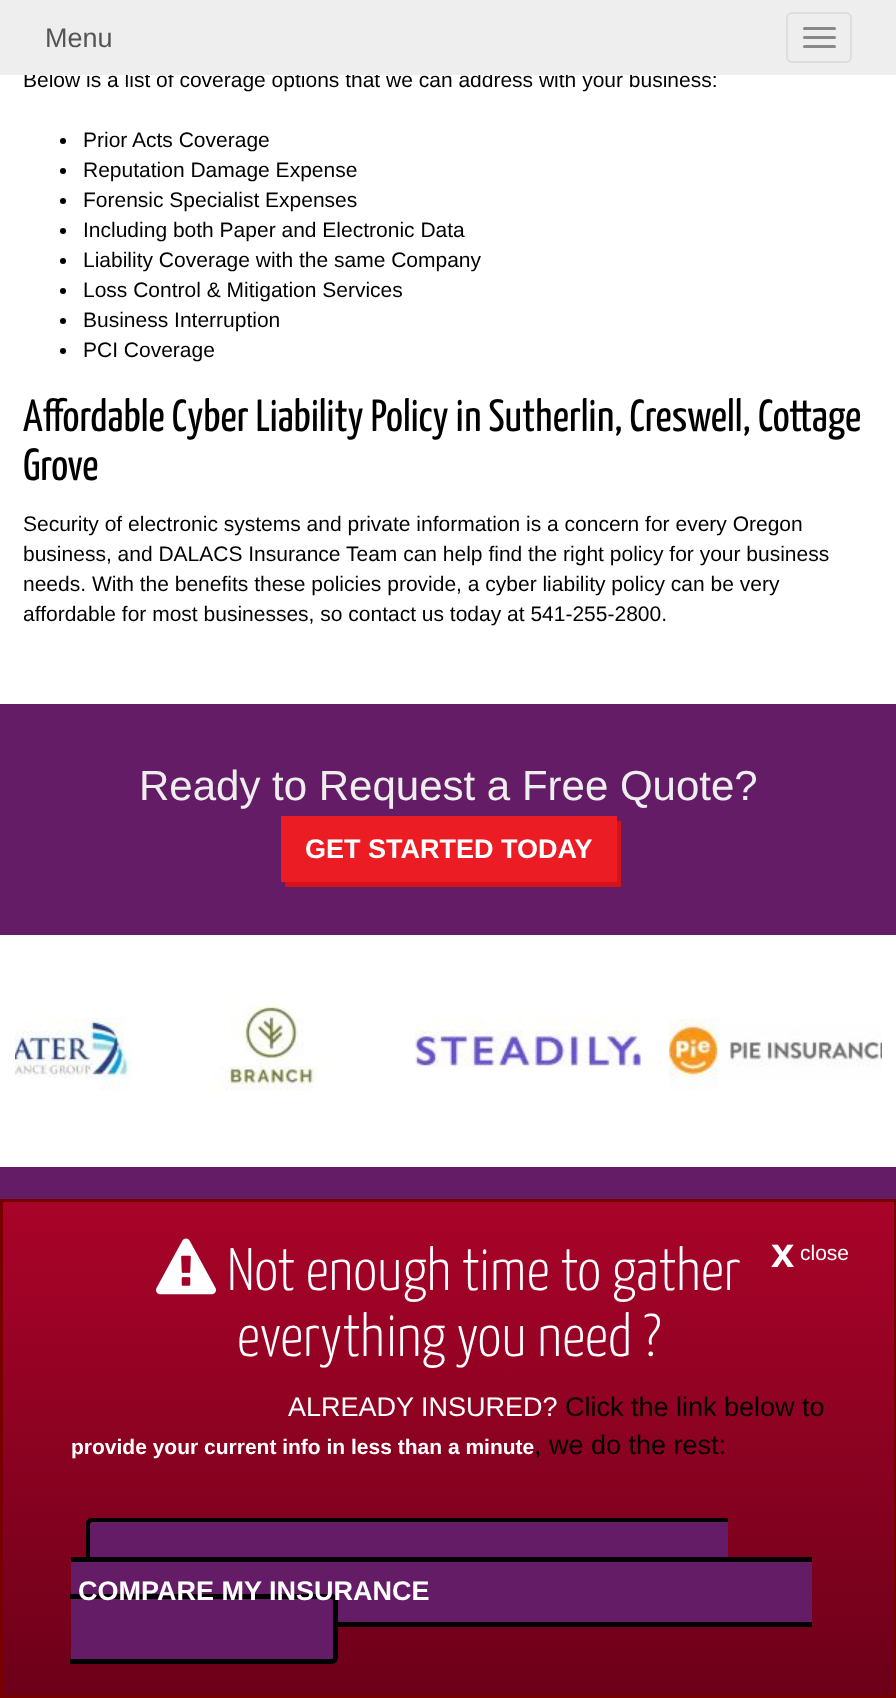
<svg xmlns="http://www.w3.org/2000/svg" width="896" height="1698">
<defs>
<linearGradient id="g1" gradientUnits="userSpaceOnUse" x1="449" y1="1202" x2="449" y2="1695"><stop offset="0" stop-color="#a90329"/><stop offset="0.44" stop-color="#8f0222"/><stop offset="1" stop-color="#6d0019"/></linearGradient>
</defs>
<rect width="100%" height="100%" fill="#fff"/>
<text x="23" y="87" style="font-family:Liberation Sans;font-size:21px;fill:#000">Below is a list of coverage options that we can address with your business:</text>
<rect width="896" height="75" fill="#eee"/>
<text x="45" y="47" style="font-family:Liberation Sans;font-size:27px;fill:#555">Menu</text>
<rect x="787" y="13" width="64" height="49" rx="5" fill="none" stroke="#ddd" stroke-width="2"/>
<rect x="803" y="27" width="33" height="3" rx="1.5" fill="#888"/>
<rect x="803" y="36" width="33" height="3" rx="1.5" fill="#888"/>
<rect x="803" y="45" width="33" height="3" rx="1.5" fill="#888"/>
<circle cx="63" cy="141" r="3" fill="#000"/>
<text x="83" y="147" style="font-family:Liberation Sans;font-size:21px;fill:#000">Prior Acts Coverage</text>
<circle cx="63" cy="171" r="3" fill="#000"/>
<text x="83" y="177" style="font-family:Liberation Sans;font-size:21px;fill:#000">Reputation Damage Expense</text>
<circle cx="63" cy="201" r="3" fill="#000"/>
<text x="83" y="207" style="font-family:Liberation Sans;font-size:21px;fill:#000">Forensic Specialist Expenses</text>
<circle cx="63" cy="231" r="3" fill="#000"/>
<text x="83" y="237" style="font-family:Liberation Sans;font-size:21px;fill:#000">Including both Paper and Electronic Data</text>
<circle cx="63" cy="261" r="3" fill="#000"/>
<text x="83" y="267" style="font-family:Liberation Sans;font-size:21px;fill:#000">Liability Coverage with the same Company</text>
<circle cx="63" cy="291" r="3" fill="#000"/>
<text x="83" y="297" style="font-family:Liberation Sans;font-size:21px;fill:#000">Loss Control &amp; Mitigation Services</text>
<circle cx="63" cy="321" r="3" fill="#000"/>
<text x="83" y="327" style="font-family:Liberation Sans;font-size:21px;fill:#000">Business Interruption</text>
<circle cx="63" cy="351" r="3" fill="#000"/>
<text x="83" y="357" style="font-family:Liberation Sans;font-size:21px;fill:#000">PCI Coverage</text>
<text x="23" y="431" style="font-family:Yanone Kaffeesatz;font-size:45px;fill:#000">Affordable Cyber Liability Policy in Sutherlin, Creswell, Cottage</text>
<text x="23" y="480" style="font-family:Yanone Kaffeesatz;font-size:45px;fill:#000">Grove</text>
<text x="23" y="531" style="font-family:Liberation Sans;font-size:21px;fill:#000">Security of electronic systems and private information is a concern for every Oregon</text>
<text x="23" y="561" style="font-family:Liberation Sans;font-size:21px;fill:#000">business, and DALACS Insurance Team can help find the right policy for your business</text>
<text x="23" y="591" style="font-family:Liberation Sans;font-size:21px;fill:#000">needs. With the benefits these policies provide, a cyber liability policy can be very</text>
<text x="23" y="621" style="font-family:Liberation Sans;font-size:21px;fill:#000">affordable for most businesses, so contact us today at 541-255-2800.</text>
<rect y="704" width="896" height="231" fill="#641c66"/>
<text x="139" y="800" style="font-family:Liberation Sans;font-size:42px;fill:#eee">Ready to Request a Free Quote?</text>
<path d="M285 882v5h336v-66h-5v61z" fill="#d31219"/>
<rect x="281" y="816" width="336" height="66" fill="#ec1c24"/>
<text x="305" y="858" style="font-family:Liberation Sans;font-size:27px;font-weight:bold;fill:#fff">GET STARTED TODAY</text>
<image x="15" y="1018" width="117" height="73" href="media/1.png"/>
<image x="208" y="995" width="120" height="96" href="media/2.png"/>
<image x="415" y="1017" width="226" height="51" href="media/3.png"/>
<image x="669" y="1018" width="213" height="73" href="media/4.png"/>
<rect y="1167" width="896" height="32" fill="#641c66"/>
<rect x="3" y="1202" width="891" height="493" fill="url(#g1)"/>
<rect x="1.5" y="1200.5" width="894" height="496" fill="none" stroke="#700" stroke-width="3"/>
<text x="771" y="1267" style="font-family:Liberation Sans;font-size:42px;font-weight:bold;fill:#fff">x</text>
<text x="800" y="1260" style="font-family:Liberation Sans;font-size:21px;fill:#fff">close</text>
<image x="156" y="1238" width="60" height="57" href="media/5.png"/>
<text x="227" y="1290" style="font-family:Yanone Kaffeesatz;font-size:60px;font-weight:300;fill:#fff">Not enough time to gather</text>
<text x="237" y="1356" style="font-family:Yanone Kaffeesatz;font-size:60px;font-weight:300;fill:#fff">everything you need ?</text>
<text x="288" y="1416" style="font-family:Liberation Sans;font-size:27px;fill:#fff">ALREADY INSURED?</text>
<text x="565" y="1416" style="font-family:Liberation Sans;font-size:27px;fill:#000">Click the link below to</text>
<text x="71" y="1454" style="font-family:Liberation Sans;font-size:21px;font-weight:bold;fill:#fff">provide your current info in less than a minute</text>
<text x="534" y="1454" style="font-family:Liberation Sans;font-size:27px;fill:#000">, we do the rest:</text>
<path d="M92 1518h636v69h-636c-3.5 0-6-2.5-6-6v-57c0-3.5 2.5-6 6-6z" fill="#641c66"/>
<path d="M92 1518h636v69h-636c-4 0-6-3-6-6v-57c0-3 2-6 6-6zm0 4h636v60h-636c-1 0-2 0-2-1v-57c0-1 1-2 2-2z" fill="#000" fill-rule="evenodd"/>
<rect x="78" y="1562" width="734" height="60" fill="#641c66"/>
<path d="M71 1595h261c3.5 0 6 2.5 6 6v57c0 3.5-2.5 6-6 6h-261z" fill="#641c66"/>
<path d="M70 1594h262c3 0 6 3 6 6v58c0 3-3 6-6 6h-262zm0 5h262c0 0 1 1 1 1v58c0 0-1 1-1 1h-262z" fill="#000" fill-rule="evenodd"/>
<text x="78" y="1600" style="font-family:Liberation Sans;font-size:27px;font-weight:bold;fill:#fff">COMPARE MY INSURANCE</text>
<rect x="71" y="1557" width="7" height="37" fill="#641c66"/>
<rect x="71" y="1557" width="741" height="5" fill="#000"/>
<rect x="338" y="1622" width="474" height="5" fill="#000"/>
</svg>
